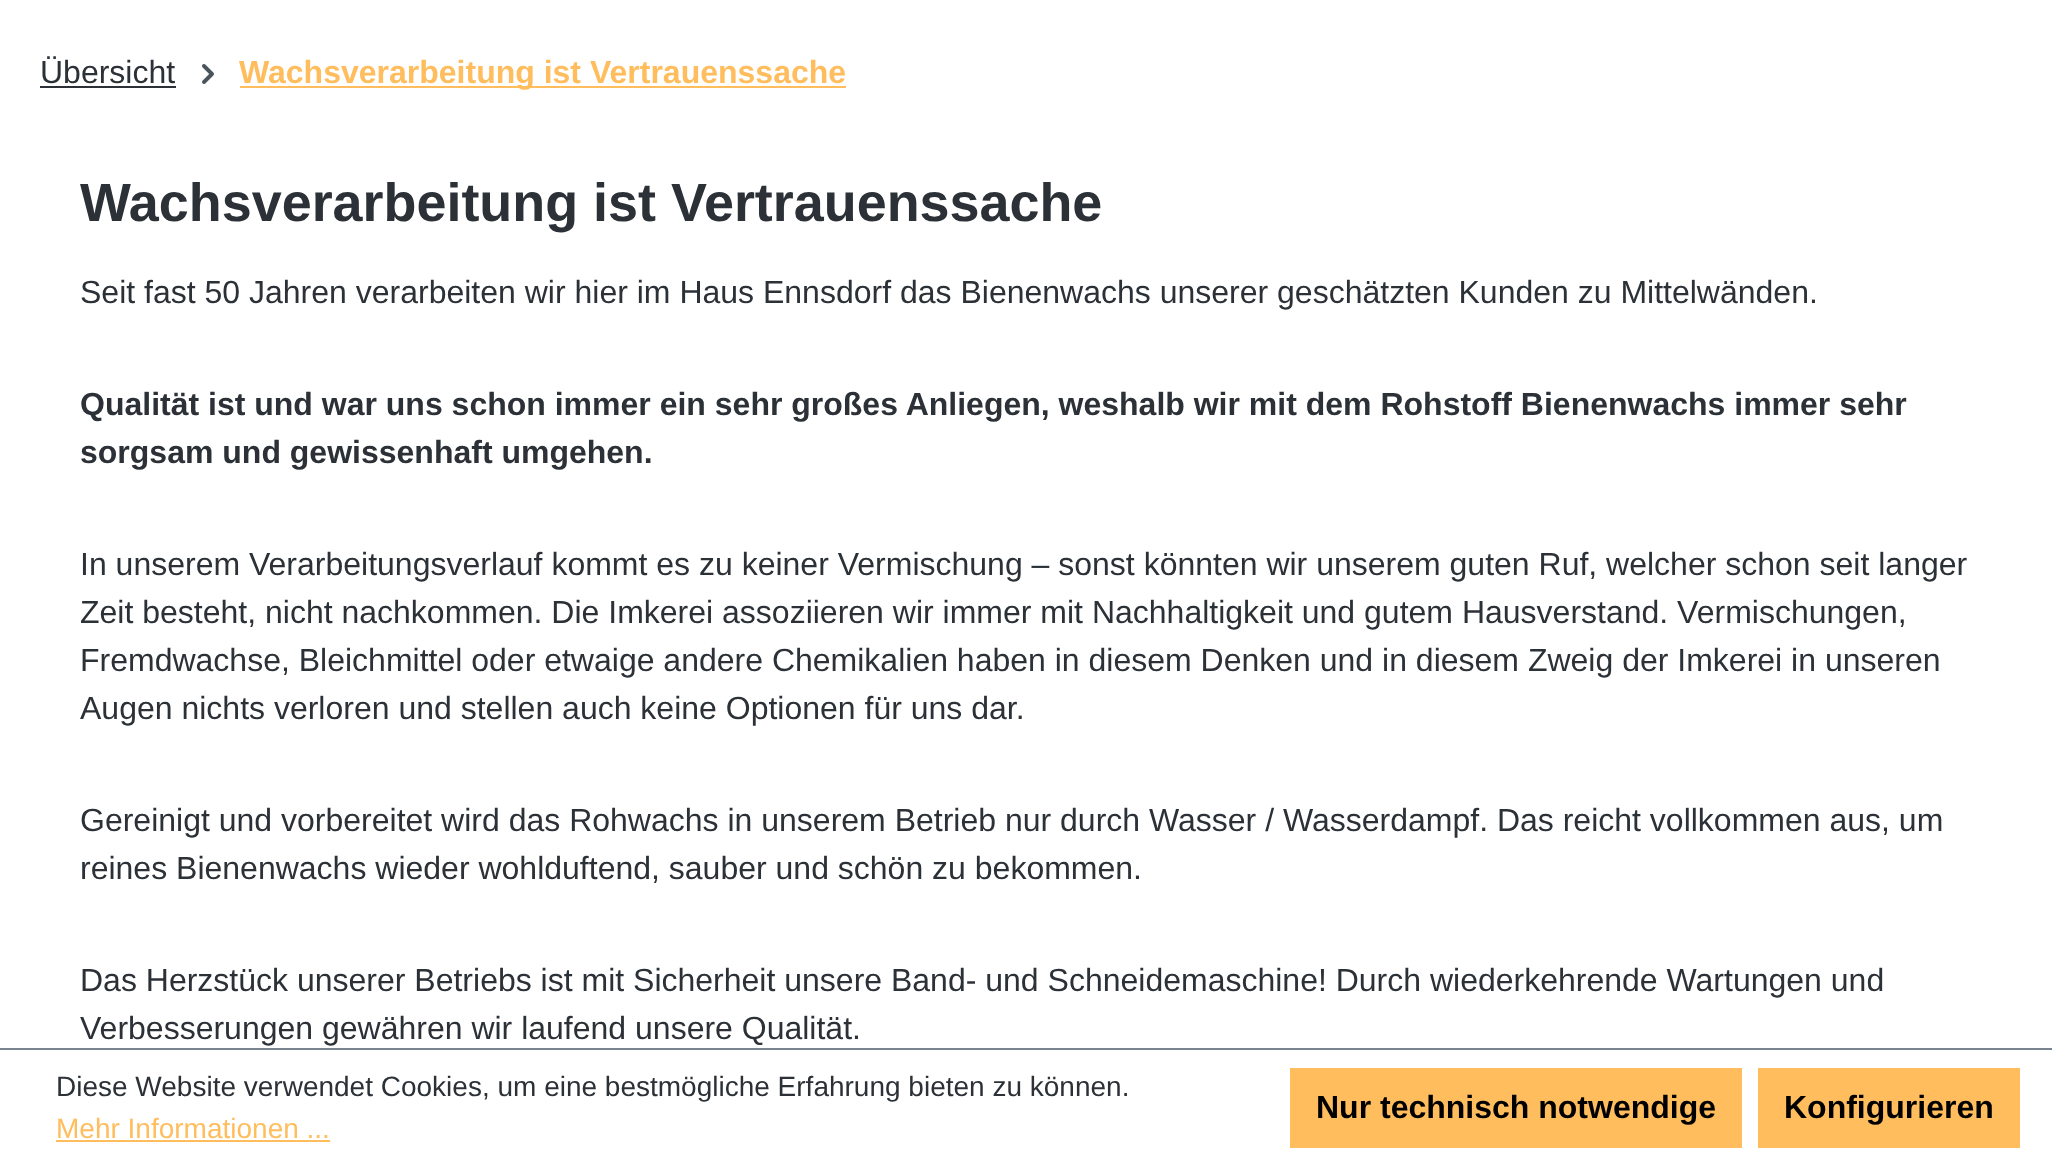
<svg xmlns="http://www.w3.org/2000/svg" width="2052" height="1165">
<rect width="100%" height="100%" fill="#fff"/>
<text x="40" y="83" style="font-family:Liberation Sans;font-size:32px;fill:#2b3136">Übersicht</text>
<rect x="40" y="86" width="136" height="2" fill="#2b3136"/>
<image x="202" y="64" width="12" height="20" href="media/1.png"/>
<rect x="240" y="86" width="606" height="2" fill="#ffbd5d"/>
<text x="239" y="83" style="font-family:Liberation Sans;font-size:32px;font-weight:bold;fill:#ffbd5d">Wachsverarbeitung ist Vertrauenssache</text>
<text x="80" y="221" style="font-family:Liberation Sans;font-size:53.9px;font-weight:bold;fill:#2b3136">Wachsverarbeitung ist Vertrauenssache</text>
<text x="80" y="303" style="font-family:Liberation Sans;font-size:32px;fill:#2b3136">Seit fast 50 Jahren verarbeiten wir hier im Haus Ennsdorf das Bienenwachs unserer geschätzten Kunden zu Mittelwänden.</text>
<text x="80" y="415" style="font-family:Liberation Sans;font-size:32px;font-weight:bold;fill:#2b3136">Qualität ist und war uns schon immer ein sehr großes Anliegen, weshalb wir mit dem Rohstoff Bienenwachs immer sehr</text>
<text x="80" y="463" style="font-family:Liberation Sans;font-size:32px;font-weight:bold;fill:#2b3136">sorgsam und gewissenhaft umgehen.</text>
<text x="80" y="575" style="font-family:Liberation Sans;font-size:32px;fill:#2b3136">In unserem Verarbeitungsverlauf kommt es zu keiner Vermischung – sonst könnten wir unserem guten Ruf, welcher schon seit langer</text>
<text x="80" y="623" style="font-family:Liberation Sans;font-size:32px;fill:#2b3136">Zeit besteht, nicht nachkommen. Die Imkerei assoziieren wir immer mit Nachhaltigkeit und gutem Hausverstand. Vermischungen,</text>
<text x="80" y="671" style="font-family:Liberation Sans;font-size:32px;fill:#2b3136">Fremdwachse, Bleichmittel oder etwaige andere Chemikalien haben in diesem Denken und in diesem Zweig der Imkerei in unseren</text>
<text x="80" y="719" style="font-family:Liberation Sans;font-size:32px;fill:#2b3136">Augen nichts verloren und stellen auch keine Optionen für uns dar.</text>
<text x="80" y="831" style="font-family:Liberation Sans;font-size:32px;fill:#2b3136">Gereinigt und vorbereitet wird das Rohwachs in unserem Betrieb nur durch Wasser / Wasserdampf. Das reicht vollkommen aus, um</text>
<text x="80" y="879" style="font-family:Liberation Sans;font-size:32px;fill:#2b3136">reines Bienenwachs wieder wohlduftend, sauber und schön zu bekommen.</text>
<text x="80" y="991" style="font-family:Liberation Sans;font-size:32px;fill:#2b3136">Das Herzstück unserer Betriebs ist mit Sicherheit unsere Band- und Schneidemaschine! Durch wiederkehrende Wartungen und</text>
<text x="80" y="1039" style="font-family:Liberation Sans;font-size:32px;fill:#2b3136">Verbesserungen gewähren wir laufend unsere Qualität.</text>
<rect y="1048" width="2052" height="2" fill="#798490"/>
<text x="56" y="1096" style="font-family:Liberation Sans;font-size:28px;fill:#2b3136">Diese Website verwendet Cookies, um eine bestmögliche Erfahrung bieten zu können.</text>
<text x="56" y="1138" style="font-family:Liberation Sans;font-size:28px;fill:#ffbd5d">Mehr Informationen ...</text>
<rect x="56" y="1140" width="274" height="2" fill="#ffbd5d"/>
<rect x="1290" y="1068" width="452" height="80" fill="#ffbd5d"/>
<text x="1316" y="1118" style="font-family:Liberation Sans;font-size:32px;font-weight:bold;fill:#000">Nur technisch notwendige</text>
<rect x="1758" y="1068" width="262" height="80" fill="#ffbd5d"/>
<text x="1784" y="1118" style="font-family:Liberation Sans;font-size:32px;font-weight:bold;fill:#000">Konfigurieren</text>
</svg>
